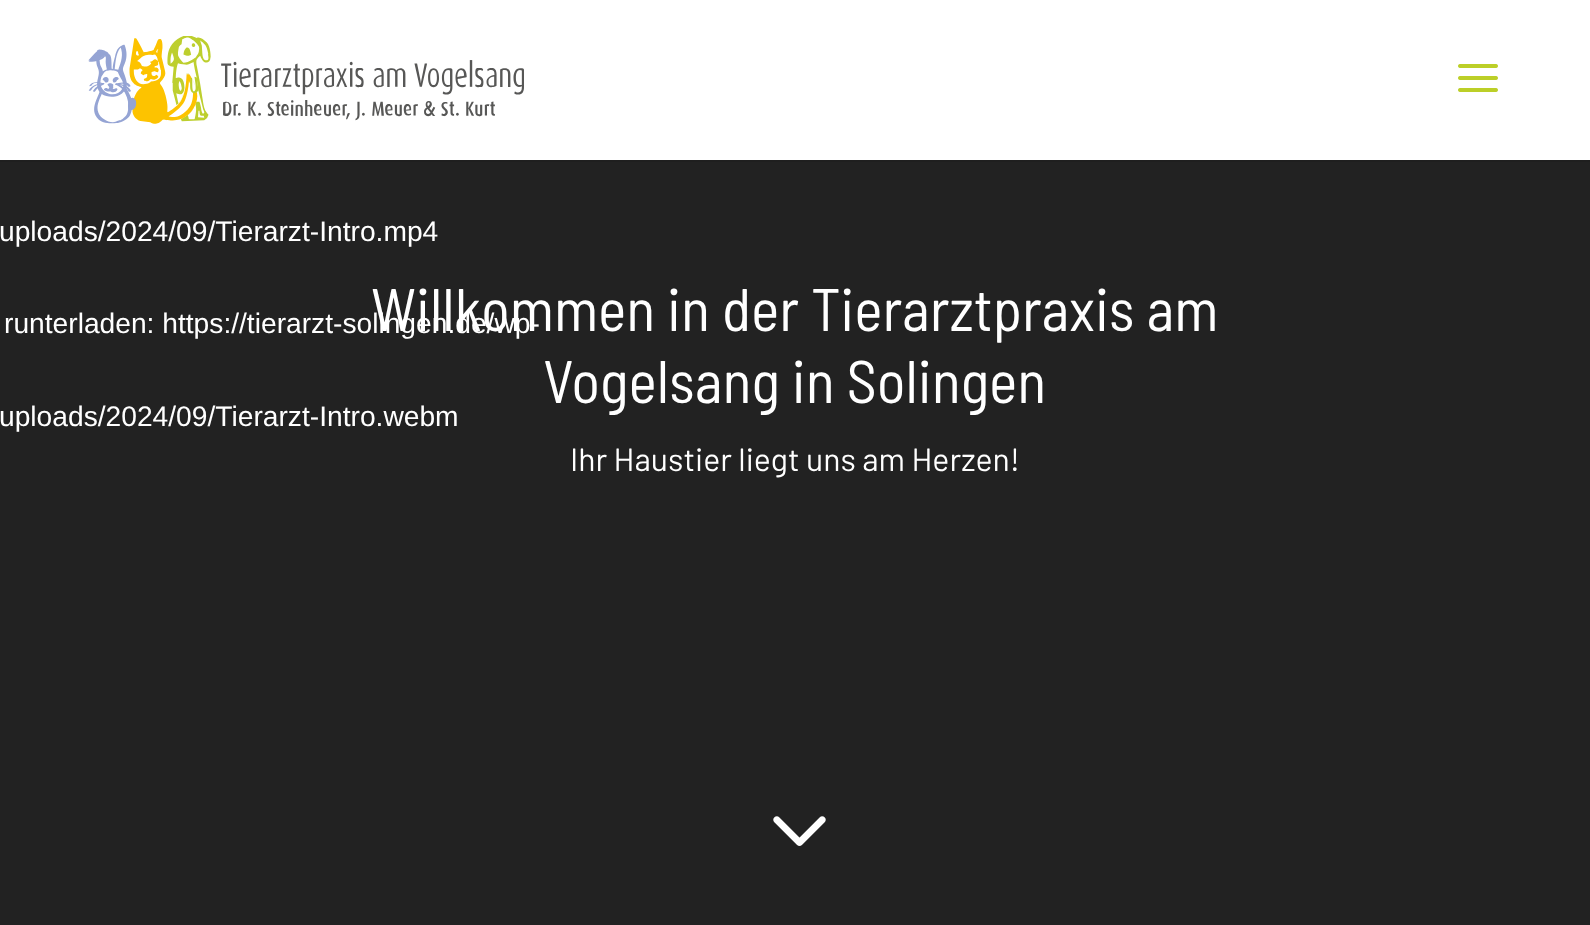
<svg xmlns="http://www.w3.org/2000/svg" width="1590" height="925">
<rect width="100%" height="100%" fill="#222"/>
<rect y="160" width="1590" height="2" fill="#1f1f1f"/>
<rect width="1590" height="160" fill="#fff"/>
<image x="88" y="36" width="436" height="88" href="media/1.png"/>
<image x="1458" y="64" width="40" height="28" href="media/2.png"/>
<text x="-1" y="241" style="font-family:Liberation Sans;font-size:28.2px;fill:#fff">uploads/2024/09/Tierarzt-Intro.mp4</text>
<text x="4" y="333" style="font-family:Liberation Sans;font-size:28.2px;fill:#fff">runterladen: https://tierarzt-solingen.de/wp-</text>
<text x="-1" y="426" style="font-family:Liberation Sans;font-size:28.2px;fill:#fff">uploads/2024/09/Tierarzt-Intro.webm</text>
<text x="371" y="331" style="font-family:Barlow Semi Condensed;font-size:60px;fill:#fff">Willkommen in der Tierarztpraxis am</text>
<text x="543" y="403" style="font-family:Barlow Semi Condensed;font-size:60px;fill:#fff">Vogelsang in Solingen</text>
<text x="570" y="471" style="font-family:Barlow;font-size:32px;fill:#fff">Ihr Haustier liegt uns am Herzen!</text>
<image x="773" y="816" width="53" height="30" href="media/3.png"/>
</svg>
